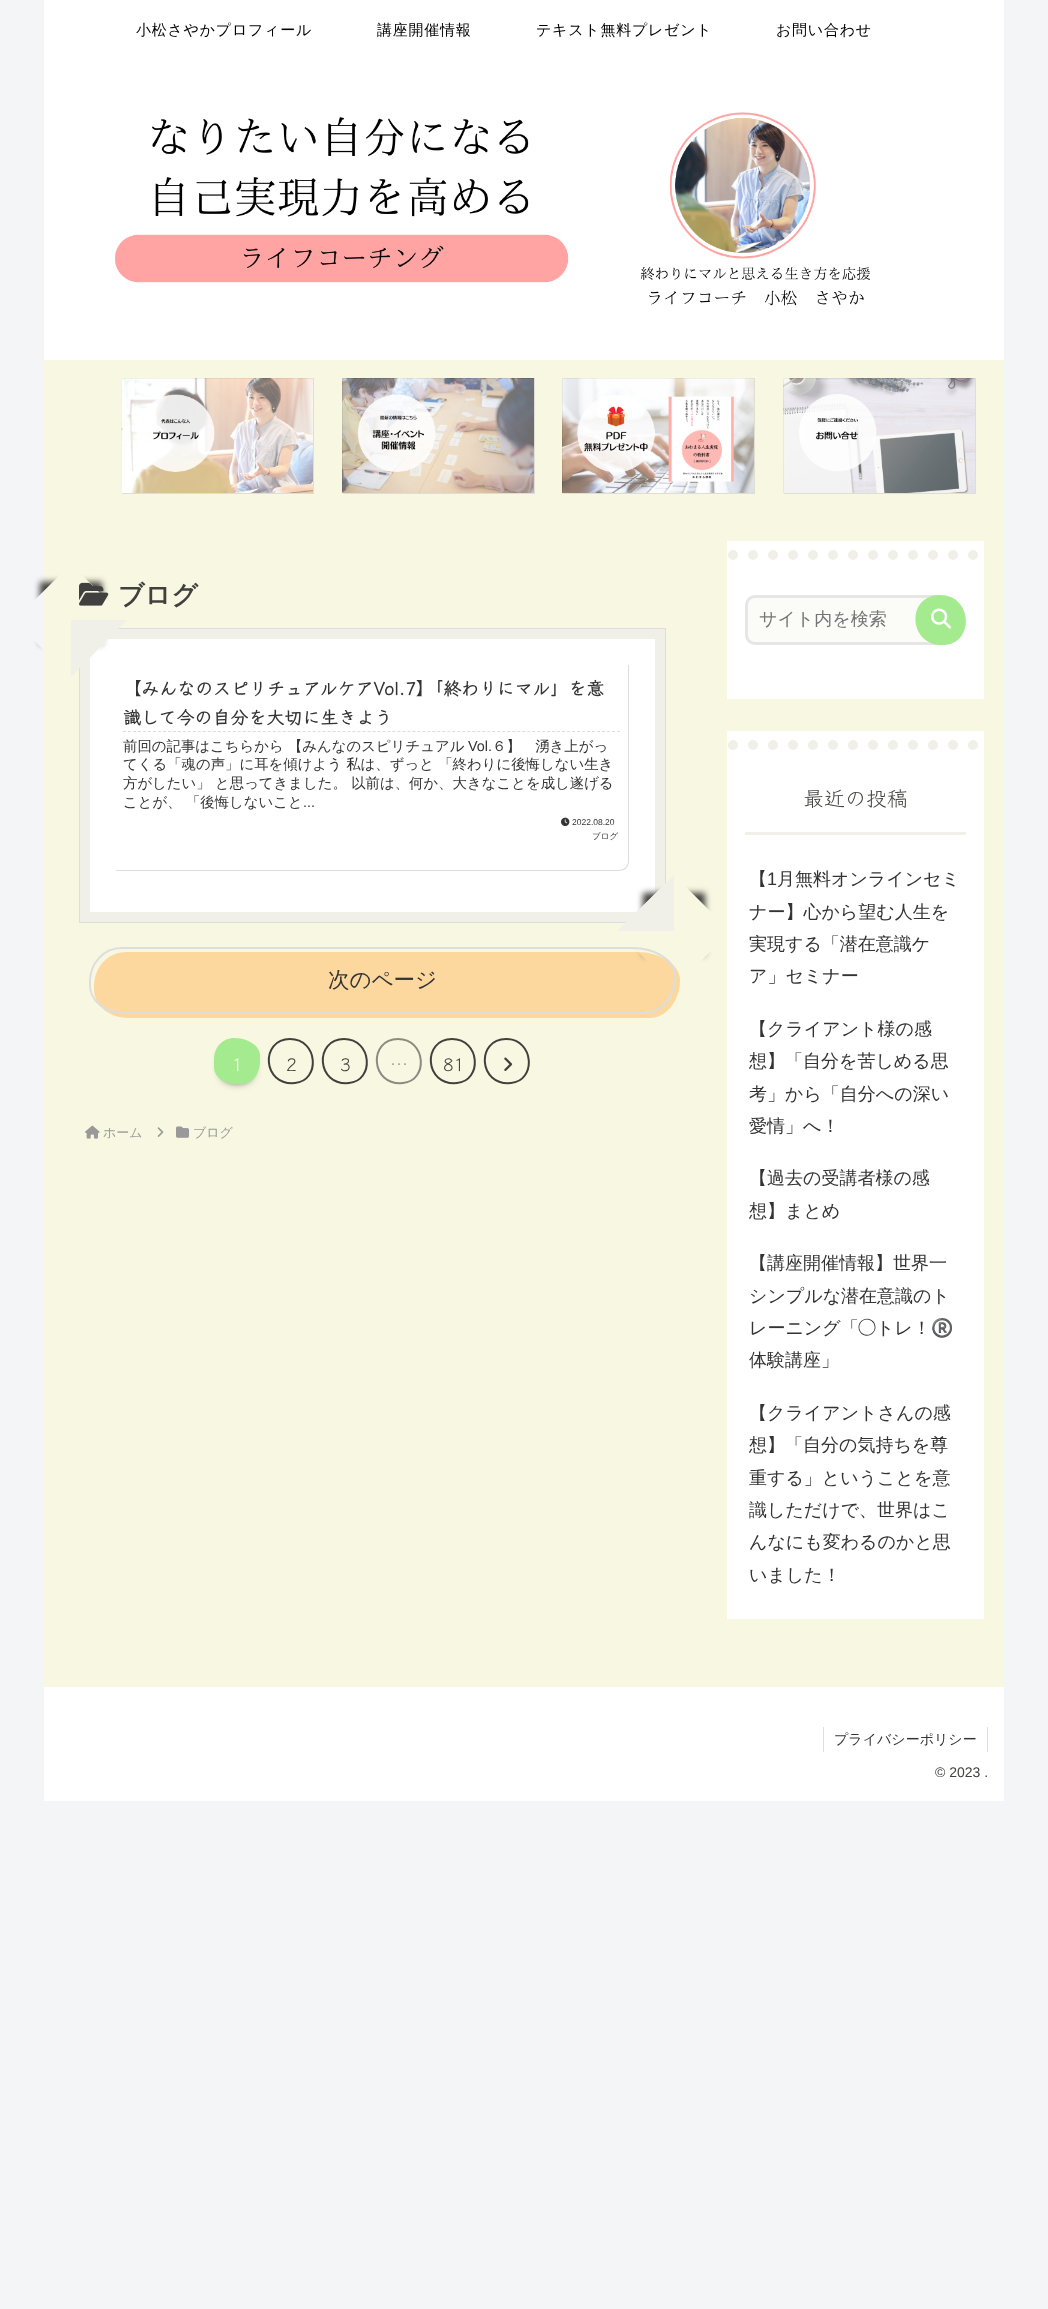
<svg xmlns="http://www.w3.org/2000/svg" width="1048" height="2309">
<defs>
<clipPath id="clip1"><rect x="121" y="378" width="192" height="115"/></clipPath>
<clipPath id="clip2"><rect x="342" y="378" width="192" height="115"/></clipPath>
<clipPath id="clip3"><rect x="562" y="378" width="192" height="115"/></clipPath>
<clipPath id="clip4"><rect x="783" y="378" width="192" height="115"/></clipPath>
<clipPath id="clip5"><path d="M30 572h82v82h-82zm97.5 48.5l-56.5 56.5l-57-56.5l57-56.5z" clip-rule="evenodd"/></clipPath>
<clipPath id="clip6"><path d="M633 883h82v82h-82zm-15.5 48.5l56.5-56.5l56.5 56.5l-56.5 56.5z" clip-rule="evenodd"/></clipPath>
</defs>
<rect width="100%" height="100%" fill="#f4f5f7"/>
<rect x="44" y="360" width="960" height="1327" fill="#f8f8e2"/>
<rect x="44" width="960" height="360" fill="#fff"/>
<text x="136" y="35" style="font-family:WenQuanYi Zen Hei;font-size:15px;font-weight:500;letter-spacing:0.75px;fill:#000">小松さやかプロフィール</text>
<text x="377" y="35" style="font-family:WenQuanYi Zen Hei;font-size:15px;font-weight:500;letter-spacing:0.75px;fill:#000">講座開催情報</text>
<text x="536" y="35" style="font-family:WenQuanYi Zen Hei;font-size:15px;font-weight:500;letter-spacing:0.75px;fill:#000">テキスト無料プレゼント</text>
<text x="776" y="35" style="font-family:WenQuanYi Zen Hei;font-size:15px;font-weight:500;letter-spacing:0.75px;fill:#000">お問い合わせ</text>
<image x="115" y="112" width="756" height="194" href="media/1.png"/>
<rect x="313" y="378" width="1" height="1" fill="#e0ddd1"/>
<path d="M122 493v1h192v-115h-1v114z" fill="#e0ddd1"/>
<rect x="122" y="379" width="191" height="114" fill="#fff"/>
<g clip-path="url(#clip1)">
<path d="M22 279h390v313h-390zm100 100h192v115h-192z" fill="#e0ddd1" fill-rule="evenodd"/>
</g>
<image x="121" y="378" width="192" height="115" href="media/2.png"/>
<rect x="534" y="378" width="1" height="1" fill="#e0ddd1"/>
<path d="M343 493v1h192v-115h-1v114z" fill="#e0ddd1"/>
<rect x="343" y="379" width="191" height="114" fill="#fff"/>
<g clip-path="url(#clip2)">
<path d="M243 279h390v313h-390zm100 100h192v115h-192z" fill="#e0ddd1" fill-rule="evenodd"/>
</g>
<image x="342" y="378" width="192" height="115" href="media/3.png"/>
<rect x="754" y="378" width="1" height="1" fill="#e0ddd1"/>
<path d="M563 493v1h192v-115h-1v114z" fill="#e0ddd1"/>
<rect x="563" y="379" width="191" height="114" fill="#fff"/>
<g clip-path="url(#clip3)">
<path d="M463 279h390v313h-390zm100 100h192v115h-192z" fill="#e0ddd1" fill-rule="evenodd"/>
</g>
<image x="562" y="378" width="192" height="115" href="media/4.png"/>
<rect x="975" y="378" width="1" height="1" fill="#e0ddd1"/>
<path d="M784 493v1h192v-115h-1v114z" fill="#e0ddd1"/>
<rect x="784" y="379" width="191" height="114" fill="#fff"/>
<g clip-path="url(#clip4)">
<path d="M684 279h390v313h-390zm100 100h192v115h-192z" fill="#e0ddd1" fill-rule="evenodd"/>
</g>
<image x="783" y="378" width="192" height="115" href="media/5.png"/>
<image x="79" y="582" width="30" height="24" href="media/6.png"/>
<text x="118" y="604" style="font-family:WenQuanYi Zen Hei;font-size:26px;font-weight:bold;fill:#41403e">ブログ</text>
<rect x="85" y="634" width="575" height="283" fill="#fff" stroke="#f0f0e8" stroke-width="10"/>
<rect x="79.5" y="628.5" width="586" height="294" fill="none" stroke="#ddd"/>
<g clip-path="url(#clip5)">
<rect x="40" y="582" width="62" height="62" fill="#41403e" filter="blur(3px)"/>
</g>
<path d="M116 665h513v196c0 6-4 10-10 10h-503zm0 0h512v196c0 5-4 9-9 9h-503z" fill="#ddd" fill-rule="evenodd"/>
<path d="M127 620l-56 57v-57z" fill="#f0f0e8"/>
<path d="M123 731.5h497" fill="none" stroke="#ddd" stroke-dasharray="3 1.99"/>
<text x="123" y="695" style="font-family:Klee One;font-size:18px;font-weight:bold;fill:#333">【みんなのスピリチュアルケアVol.7】「終わりにマル」を意</text>
<text x="123" y="724" style="font-family:Klee One;font-size:18px;font-weight:bold;fill:#333">識して今の自分を大切に生きよう</text>
<text x="123" y="751" style="font-family:WenQuanYi Zen Hei;font-size:14.4px;font-weight:500;fill:#333">前回の記事はこちらから 【みんなのスピリチュアル</text>
<text x="468" y="751" style="font-family:Liberation Sans;font-size:14.4px;fill:#333">Vol.</text>
<text x="492" y="751" style="font-family:WenQuanYi Zen Hei;font-size:14.4px;font-weight:500;fill:#333">６】　湧き上がっ</text>
<text x="123" y="769" style="font-family:WenQuanYi Zen Hei;font-size:14.4px;font-weight:500;fill:#333">てくる「魂の声」に耳を傾けよう 私は、ずっと 「終わりに後悔しない生き</text>
<text x="123" y="788" style="font-family:WenQuanYi Zen Hei;font-size:14.4px;font-weight:500;fill:#333">方がしたい」 と思ってきました。 以前は、何か、大きなことを成し遂げる</text>
<text x="123" y="807" style="font-family:WenQuanYi Zen Hei;font-size:14.4px;font-weight:500;fill:#333">ことが、 「後悔しないこと</text>
<text x="303" y="807" style="font-family:Liberation Sans;font-size:14.4px;fill:#333">...</text>
<image x="561" y="817" width="9" height="9" href="media/7.png"/>
<text x="572" y="825" style="font-family:Liberation Sans;font-size:8.5px;fill:#333">2022.08.20</text>
<text x="592" y="839" style="font-family:WenQuanYi Zen Hei;font-size:8.5px;font-weight:500;fill:#333">ブログ</text>
<path d="M126 952h511c24 0 43 13 43 28c0 21-14 38-30 38h-522c-19 0-34-13-34-28v-4c0-19 14-34 32-34z" fill="#fcd89f"/>
<g clip-path="url(#clip6)">
<rect x="643" y="893" width="62" height="62" fill="#41403e" filter="blur(3px)"/>
</g>
<path d="M617 931l57-56v56z" fill="#f0f0e8"/>
<path d="M121.5 948h510.5c23.5 0 43 12.5 43 27.5c0 21-13.5 37.5-29.5 37.5h-522c-18.5 0-33.5-12.5-33.5-27.5v-4c0-18.5 14-33.5 31.5-33.5z" fill="none" stroke="#ddd" stroke-width="2"/>
<text x="328" y="987" style="font-family:WenQuanYi Zen Hei;font-size:21.5px;font-weight:500;fill:#333">次のページ</text>
<rect x="221" y="1050" width="32" height="32" rx="13" fill="#41403e" filter="blur(4px)"/>
<path d="M234 1038c14 0 26 8 26 17v6c0 13-8 23-18 23h-7c-12 0-21-8-21-17v-8c0-12 9-21 20-21z" fill="#a4ea8f"/>
<text x="232" y="1071" style="font-family:Klee One;font-size:18px;fill:#fff">1</text>
<path d="M290 1039c28.5 0 30.5 42 5 44c-33 3-35-44-5-44z" fill="none" stroke="#41403e" stroke-width="2"/>
<text x="286" y="1071" style="font-family:Klee One;font-size:18px;fill:#41403e">2</text>
<path d="M344 1039c28.5 0 30.5 42 5 44c-33 3-35-44-5-44z" fill="none" stroke="#41403e" stroke-width="2"/>
<text x="340" y="1071" style="font-family:Klee One;font-size:18px;fill:#41403e">3</text>
<path d="M398 1039c28.5 0 30.5 42 5 44c-33 3-35-44-5-44z" fill="none" stroke="#8a8a80" stroke-width="2"/>
<text x="390" y="1071" style="font-family:Klee One;font-size:18px;fill:#8a8a80">…</text>
<path d="M452 1039c28.5 0 30.5 42 5 44c-33 3-35-44-5-44z" fill="none" stroke="#41403e" stroke-width="2"/>
<text x="443" y="1071" style="font-family:Klee One;font-size:18px;fill:#41403e">81</text>
<path d="M506 1039c28.5 0 30.5 42 5 44c-33 3-35-44-5-44z" fill="none" stroke="#41403e" stroke-width="2"/>
<image x="504" y="1057" width="9" height="14" href="media/8.png"/>
<image x="85" y="1125" width="15" height="14" href="media/9.png"/>
<text x="103" y="1137" style="font-family:WenQuanYi Zen Hei;font-size:13px;font-weight:500;fill:#999">ホーム</text>
<image x="157" y="1127" width="7" height="10" href="media/10.png"/>
<image x="176" y="1126" width="13" height="12" href="media/11.png"/>
<text x="193" y="1137" style="font-family:WenQuanYi Zen Hei;font-size:13px;font-weight:500;fill:#999">ブログ</text>
<rect x="727" y="541" width="257" height="158" fill="#fff"/>
<path d="M733 555h244" fill="none" stroke="#f0f0e8" stroke-width="10" stroke-linecap="round" stroke-dasharray="0 20"/>
<rect x="745" y="595" width="203" height="50" rx="10" fill="#fbfbf8"/>
<rect x="746.5" y="596.5" width="200" height="47" rx="8.5" fill="none" stroke="#ddddddb3" stroke-width="3"/>
<text x="759" y="625" style="font-family:WenQuanYi Zen Hei;font-size:18px;font-weight:500;fill:#757575">サイト内を検索</text>
<path d="M940 595c32 0 35 47 5 50c-37 3-40-50-5-50z" fill="#a4ea8f"/>
<image x="931" y="608" width="20" height="21" href="media/12.png"/>
<rect x="727" y="731" width="257" height="888" fill="#fff"/>
<path d="M733 745h244" fill="none" stroke="#f0f0e8" stroke-width="10" stroke-linecap="round" stroke-dasharray="0 20"/>
<rect x="745" y="832" width="221" height="3" fill="#f0f0e8"/>
<text x="803" y="806" style="font-family:Klee One;font-size:21px;fill:#41403e">最近の投稿</text>
<text x="749" y="885" style="font-family:WenQuanYi Zen Hei;font-size:18px;font-weight:500;fill:#333">【</text>
<text x="767" y="885" style="font-family:Liberation Sans;font-size:18px;fill:#333">1</text>
<text x="777" y="885" style="font-family:WenQuanYi Zen Hei;font-size:18px;font-weight:500;fill:#333">月無料オンラインセミ</text>
<text x="749" y="918" style="font-family:WenQuanYi Zen Hei;font-size:18px;font-weight:500;fill:#333">ナー】心から望む人生を</text>
<text x="749" y="950" style="font-family:WenQuanYi Zen Hei;font-size:18px;font-weight:500;fill:#333">実現する「潜在意識ケ</text>
<text x="749" y="982" style="font-family:WenQuanYi Zen Hei;font-size:18px;font-weight:500;fill:#333">ア」セミナー</text>
<text x="749" y="1035" style="font-family:WenQuanYi Zen Hei;font-size:18px;font-weight:500;fill:#333">【クライアント様の感</text>
<text x="749" y="1067" style="font-family:WenQuanYi Zen Hei;font-size:18px;font-weight:500;fill:#333">想】「自分を苦しめる思</text>
<text x="749" y="1100" style="font-family:WenQuanYi Zen Hei;font-size:18px;font-weight:500;fill:#333">考」から「自分への深い</text>
<text x="749" y="1132" style="font-family:WenQuanYi Zen Hei;font-size:18px;font-weight:500;fill:#333">愛情」へ！</text>
<text x="749" y="1184" style="font-family:WenQuanYi Zen Hei;font-size:18px;font-weight:500;fill:#333">【過去の受講者様の感</text>
<text x="749" y="1217" style="font-family:WenQuanYi Zen Hei;font-size:18px;font-weight:500;fill:#333">想】まとめ</text>
<text x="749" y="1269" style="font-family:WenQuanYi Zen Hei;font-size:18px;font-weight:500;fill:#333">【講座開催情報】世界一</text>
<text x="749" y="1302" style="font-family:WenQuanYi Zen Hei;font-size:18px;font-weight:500;fill:#333">シンプルな潜在意識のト</text>
<text x="749" y="1334" style="font-family:WenQuanYi Zen Hei;font-size:18px;font-weight:500;fill:#333">レーニング「</text>
<text x="858" y="1334" style="font-family:IPAPGothic;font-size:18px;fill:#333">◯</text>
<text x="876" y="1334" style="font-family:WenQuanYi Zen Hei;font-size:18px;font-weight:500;fill:#333">トレ！</text>
<text x="931" y="1334" style="font-family:Noto Color Emoji;font-size:18px;fill:#333">®️</text>
<text x="749" y="1366" style="font-family:WenQuanYi Zen Hei;font-size:18px;font-weight:500;fill:#333">体験講座」</text>
<text x="749" y="1419" style="font-family:WenQuanYi Zen Hei;font-size:18px;font-weight:500;fill:#333">【クライアントさんの感</text>
<text x="749" y="1451" style="font-family:WenQuanYi Zen Hei;font-size:18px;font-weight:500;fill:#333">想】「自分の気持ちを尊</text>
<text x="749" y="1484" style="font-family:WenQuanYi Zen Hei;font-size:18px;font-weight:500;fill:#333">重する」ということを意</text>
<text x="749" y="1516" style="font-family:WenQuanYi Zen Hei;font-size:18px;font-weight:500;fill:#333">識しただけで、世界はこ</text>
<text x="749" y="1548" style="font-family:WenQuanYi Zen Hei;font-size:18px;font-weight:500;fill:#333">んなにも変わるのかと思</text>
<text x="749" y="1581" style="font-family:WenQuanYi Zen Hei;font-size:18px;font-weight:500;fill:#333">いました！</text>
<rect x="44" y="1687" width="960" height="114" fill="#fff"/>
<rect x="987" y="1727" width="1" height="25" fill="#ddd"/>
<rect x="823" y="1727" width="1" height="25" fill="#ddd"/>
<text x="834" y="1744" style="font-family:WenQuanYi Zen Hei;font-size:14px;font-weight:500;fill:#333">プライバシーポリシー</text>
<text x="935" y="1777" style="font-family:Liberation Sans;font-size:14px;fill:#41403e">© 2023 .</text>
</svg>
